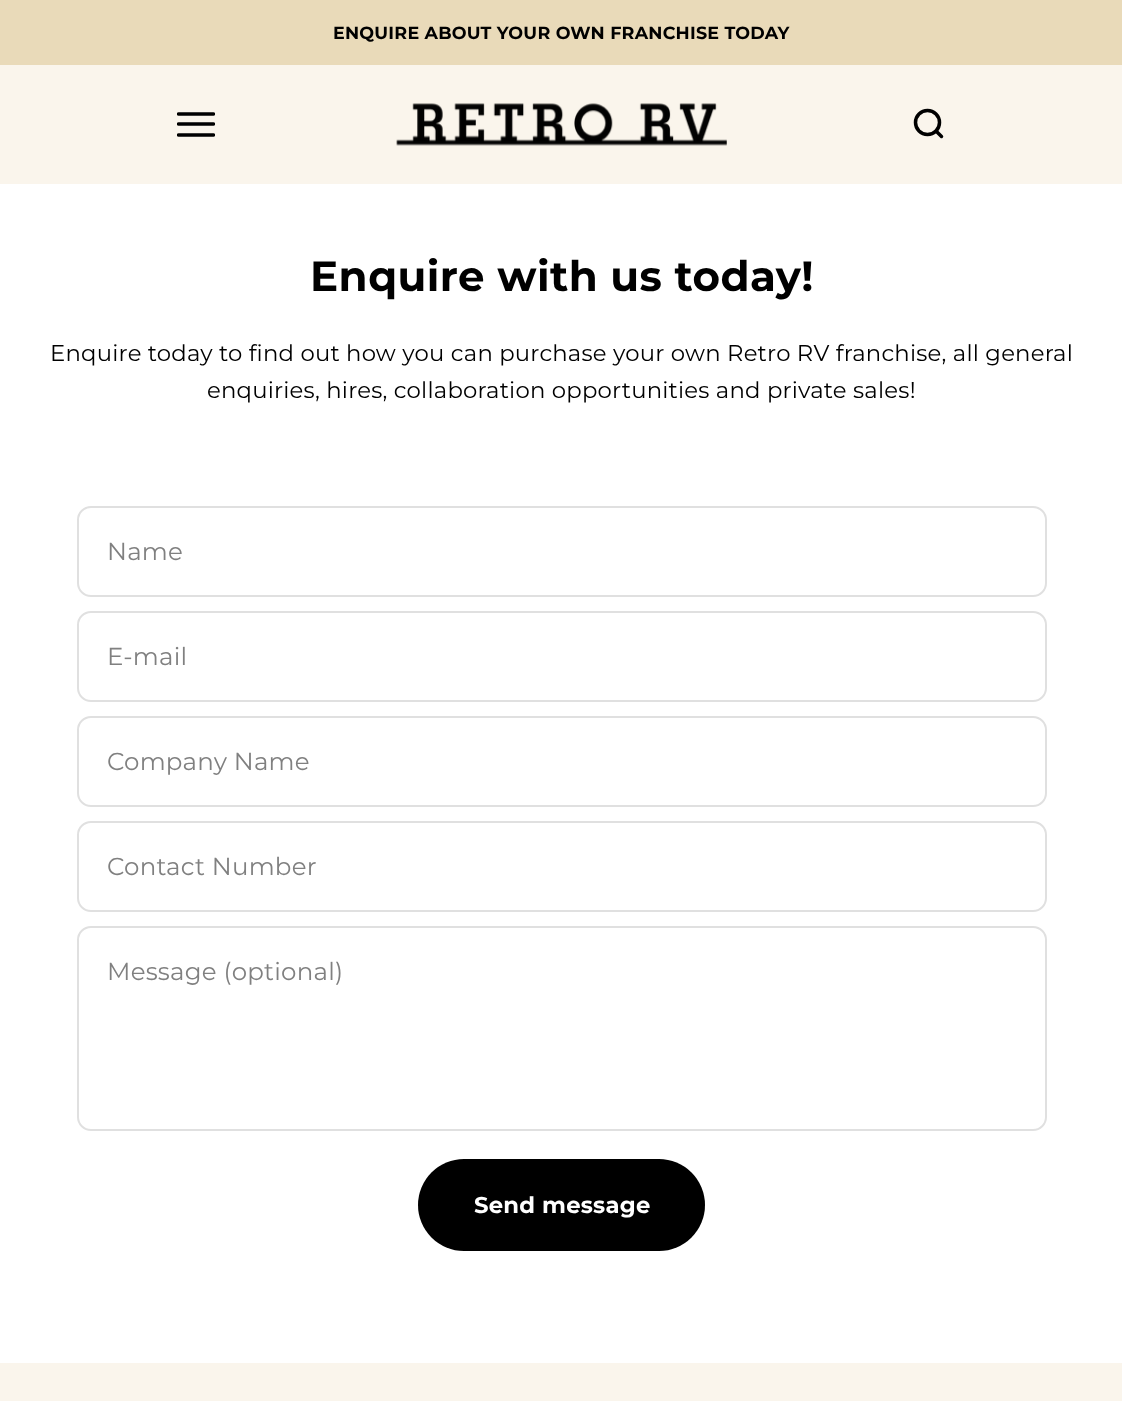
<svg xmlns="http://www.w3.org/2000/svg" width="1122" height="1401">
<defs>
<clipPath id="clip1"><rect x="177" y="105" width="38" height="39"/></clipPath>
</defs>
<rect width="100%" height="100%" fill="#faf5ec"/>
<rect width="1122" height="65" fill="#e9dab9"/>
<text x="333" y="39" style="font-family:Montserrat;font-size:17.5px;font-weight:bold;letter-spacing:0.23px;fill:#000">ENQUIRE ABOUT YOUR OWN FRANCHISE TODAY</text>
<g clip-path="url(#clip1)">
<path d="M178.5 114h35m-35 10h35m-35 11h35" fill="none" stroke="#000" stroke-width="3.5" stroke-linecap="round"/>
</g>
<image x="396" y="103" width="331" height="43" href="media/1.png"/>
<circle cx="927.5" cy="122.5" r="12" fill="none" stroke="#000" stroke-width="3.5"/>
<path d="M936 131l5.5 5.5" fill="none" stroke="#000" stroke-width="3.5" stroke-linecap="round" stroke-linejoin="round"/>
<rect y="184" width="1122" height="1179" fill="#fff"/>
<text x="310" y="291" style="font-family:Montserrat;font-size:42px;font-weight:bold;letter-spacing:0.4px;fill:#000">Enquire with us today!</text>
<text x="50" y="361" style="font-family:Montserrat;font-size:22.75px;letter-spacing:0.23px;fill:#000">Enquire today to find out how you can purchase your own Retro RV franchise, all general</text>
<text x="207" y="398" style="font-family:Montserrat;font-size:22.75px;letter-spacing:0.23px;fill:#000">enquiries, hires, collaboration opportunities and private sales!</text>
<rect x="78" y="507" width="968" height="89" rx="13" fill="none" stroke="#e0e0e0" stroke-width="2"/>
<text x="107" y="560" style="font-family:Montserrat;font-size:24.5px;letter-spacing:0.23px;fill:#808080">Name</text>
<rect x="78" y="612" width="968" height="89" rx="13" fill="none" stroke="#e0e0e0" stroke-width="2"/>
<text x="107" y="665" style="font-family:Montserrat;font-size:24.5px;letter-spacing:0.23px;fill:#808080">E-mail</text>
<rect x="78" y="717" width="968" height="89" rx="13" fill="none" stroke="#e0e0e0" stroke-width="2"/>
<text x="107" y="770" style="font-family:Montserrat;font-size:24.5px;letter-spacing:0.23px;fill:#808080">Company Name</text>
<rect x="78" y="822" width="968" height="89" rx="13" fill="none" stroke="#e0e0e0" stroke-width="2"/>
<text x="107" y="875" style="font-family:Montserrat;font-size:24.5px;letter-spacing:0.23px;fill:#808080">Contact Number</text>
<rect x="78" y="927" width="968" height="203" rx="13" fill="none" stroke="#e0e0e0" stroke-width="2"/>
<text x="107" y="980" style="font-family:Montserrat;font-size:24.5px;letter-spacing:0.23px;fill:#808080">Message (optional)</text>
<rect x="418" y="1159" width="287" height="92" rx="46" fill="#000"/>
<text x="474" y="1213" style="font-family:Montserrat;font-size:22.75px;font-weight:bold;letter-spacing:0.23px;fill:#fff">Send message</text>
</svg>
